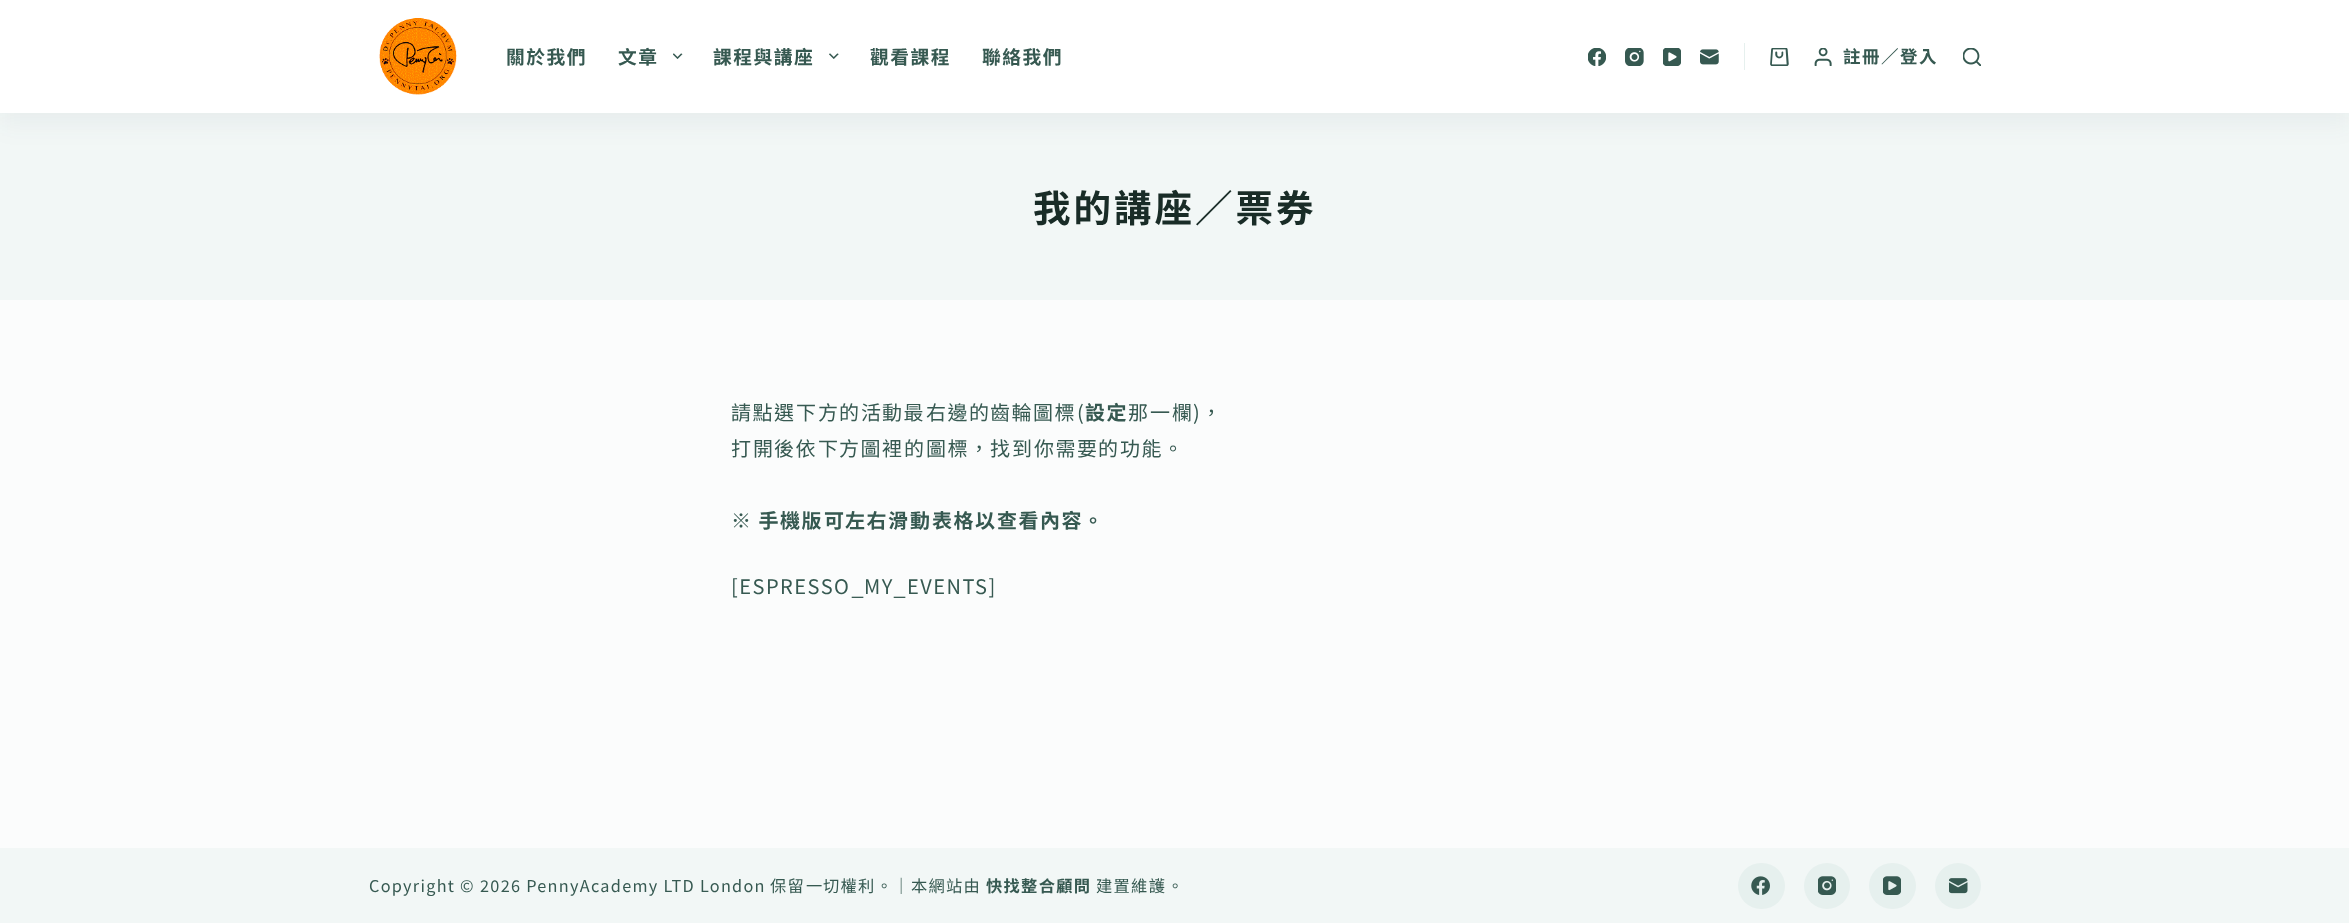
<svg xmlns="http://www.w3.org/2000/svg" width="2349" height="923">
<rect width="100%" height="100%" fill="#fbfcfc"/>
<rect y="113" width="2349" height="187" fill="#f2f7f6"/>
<rect y="13" width="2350" height="112" fill="#2c3e500d" filter="blur(12.5px)"/>
<rect width="2349" height="113" fill="#fff"/>
<image x="379" y="18" width="78" height="77" href="media/1.png"/>
<text x="506" y="64" style="font-family:Noto Sans TC;font-size:18.75px;font-weight:bold;letter-spacing:1.5px;fill:#365951">關於我們</text>
<text x="618" y="64" style="font-family:'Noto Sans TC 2';font-size:18.75px;font-weight:bold;letter-spacing:1.5px;fill:#365951">文章</text>
<image x="673" y="53" width="10" height="6" href="media/2.png"/>
<text x="713" y="64" style="font-family:'Noto Sans TC 2';font-size:18.75px;font-weight:bold;letter-spacing:1.5px;fill:#365951">課程與講座</text>
<image x="829" y="53" width="10" height="6" href="media/3.png"/>
<text x="870" y="64" style="font-family:'Noto Sans TC 2';font-size:18.75px;font-weight:bold;letter-spacing:1.5px;fill:#365951">觀看課程</text>
<text x="982" y="64" style="font-family:Noto Sans TC;font-size:18.75px;font-weight:bold;letter-spacing:1.5px;fill:#365951">聯絡我們</text>
<image x="1588" y="48" width="18" height="18" href="media/4.png"/>
<image x="1625" y="48" width="19" height="18" href="media/5.png"/>
<image x="1663" y="48" width="18" height="18" href="media/6.png"/>
<image x="1700" y="49" width="19" height="16" href="media/7.png"/>
<rect x="1744" y="43" width="1" height="27" fill="#e6f0ee"/>
<image x="1770" y="48" width="19" height="18" href="media/8.png"/>
<image x="1814" y="48" width="18" height="18" href="media/9.png"/>
<text x="1843" y="63" style="font-family:'Noto Sans TC 2';font-size:17.5px;font-weight:bold;letter-spacing:1.5px;fill:#365951">註冊／登入</text>
<image x="1963" y="48" width="18" height="18" href="media/10.png"/>
<text x="1033" y="222" style="font-family:'Noto Sans TC 2';font-size:37.5px;font-weight:bold;letter-spacing:3px;fill:#192c27">我的講座／票券</text>
<text x="731" y="420" style="font-family:Noto Sans CJK TC;font-size:20px;letter-spacing:1.5px;fill:#365951">請點選</text>
<text x="796" y="420" style="font-family:Noto Sans TC;font-size:20px;letter-spacing:1.5px;fill:#365951">下</text>
<text x="818" y="420" style="font-family:Noto Sans CJK TC;font-size:20px;letter-spacing:1.5px;fill:#365951">方</text>
<text x="839" y="420" style="font-family:Noto Sans TC;font-size:20px;letter-spacing:1.5px;fill:#365951">的</text>
<text x="861" y="420" style="font-family:Noto Sans CJK TC;font-size:20px;letter-spacing:1.5px;fill:#365951">活</text>
<text x="882" y="420" style="font-family:Noto Sans TC;font-size:20px;letter-spacing:1.5px;fill:#365951">動最</text>
<text x="926" y="420" style="font-family:Noto Sans CJK TC;font-size:20px;letter-spacing:1.5px;fill:#365951">右邊</text>
<text x="969" y="420" style="font-family:Noto Sans TC;font-size:20px;letter-spacing:1.5px;fill:#365951">的</text>
<text x="990" y="420" style="font-family:Noto Sans CJK TC;font-size:20px;letter-spacing:1.5px;fill:#365951">齒輪圖標</text>
<text x="1077" y="420" style="font-family:Noto Sans TC;font-size:20px;letter-spacing:1.5px;fill:#365951">(</text>
<text x="1085" y="420" style="font-family:Noto Sans TC;font-size:20px;font-weight:bold;letter-spacing:1.5px;fill:#365951">設定</text>
<text x="1128" y="420" style="font-family:Noto Sans CJK TC;font-size:20px;letter-spacing:1.5px;fill:#365951">那</text>
<text x="1150" y="420" style="font-family:Noto Sans TC;font-size:20px;letter-spacing:1.5px;fill:#365951">一</text>
<text x="1172" y="420" style="font-family:Noto Sans CJK TC;font-size:20px;letter-spacing:1.5px;fill:#365951">欄</text>
<text x="1193" y="420" style="font-family:Noto Sans TC;font-size:20px;letter-spacing:1.5px;fill:#365951">)，</text>
<text x="731" y="456" style="font-family:Noto Sans CJK TC;font-size:20px;letter-spacing:1.5px;fill:#365951">打</text>
<text x="753" y="456" style="font-family:Noto Sans TC;font-size:20px;letter-spacing:1.5px;fill:#365951">開</text>
<text x="774" y="456" style="font-family:Noto Sans CJK TC;font-size:20px;letter-spacing:1.5px;fill:#365951">後依</text>
<text x="818" y="456" style="font-family:Noto Sans TC;font-size:20px;letter-spacing:1.5px;fill:#365951">下</text>
<text x="839" y="456" style="font-family:Noto Sans CJK TC;font-size:20px;letter-spacing:1.5px;fill:#365951">方圖裡</text>
<text x="904" y="456" style="font-family:Noto Sans TC;font-size:20px;letter-spacing:1.5px;fill:#365951">的</text>
<text x="926" y="456" style="font-family:Noto Sans CJK TC;font-size:20px;letter-spacing:1.5px;fill:#365951">圖標</text>
<text x="969" y="456" style="font-family:Noto Sans TC;font-size:20px;letter-spacing:1.5px;fill:#365951">，</text>
<text x="990" y="456" style="font-family:Noto Sans CJK TC;font-size:20px;letter-spacing:1.5px;fill:#365951">找</text>
<text x="1012" y="456" style="font-family:Noto Sans TC;font-size:20px;letter-spacing:1.5px;fill:#365951">到</text>
<text x="1034" y="456" style="font-family:Noto Sans CJK TC;font-size:20px;letter-spacing:1.5px;fill:#365951">你需要</text>
<text x="1098" y="456" style="font-family:Noto Sans TC;font-size:20px;letter-spacing:1.5px;fill:#365951">的</text>
<text x="1120" y="456" style="font-family:Noto Sans CJK TC;font-size:20px;letter-spacing:1.5px;fill:#365951">功能</text>
<text x="1163" y="456" style="font-family:Noto Sans TC;font-size:20px;letter-spacing:1.5px;fill:#365951">。</text>
<text x="731" y="528" style="font-family:'Noto Sans TC 2';font-size:20px;font-weight:bold;letter-spacing:1.5px;fill:#365951">※ 手機版</text>
<text x="824" y="528" style="font-family:Noto Sans TC;font-size:20px;font-weight:bold;letter-spacing:1.5px;fill:#365951">可</text>
<text x="845" y="528" style="font-family:'Noto Sans TC 2';font-size:20px;font-weight:bold;letter-spacing:1.5px;fill:#365951">左右滑</text>
<text x="910" y="528" style="font-family:Noto Sans TC;font-size:20px;font-weight:bold;letter-spacing:1.5px;fill:#365951">動</text>
<text x="932" y="528" style="font-family:'Noto Sans TC 2';font-size:20px;font-weight:bold;letter-spacing:1.5px;fill:#365951">表格</text>
<text x="975" y="528" style="font-family:Noto Sans TC;font-size:20px;font-weight:bold;letter-spacing:1.5px;fill:#365951">以</text>
<text x="997" y="528" style="font-family:'Noto Sans TC 2';font-size:20px;font-weight:bold;letter-spacing:1.5px;fill:#365951">查看內容</text>
<text x="1083" y="528" style="font-family:Noto Sans TC;font-size:20px;font-weight:bold;letter-spacing:1.5px;fill:#365951">。</text>
<text x="731" y="594" style="font-family:Noto Sans TC;font-size:20px;letter-spacing:1.5px;fill:#365951">[ESPRESSO</text>
<text x="864" y="594" style="font-family:Noto Sans TC;font-size:20px;letter-spacing:1.5px;fill:#365951">MY</text>
<text x="907" y="594" style="font-family:Noto Sans TC;font-size:20px;letter-spacing:1.5px;fill:#365951">EVENTS]</text>
<text x="852" y="594" style="font-family:Liberation Sans;font-size:20px;letter-spacing:1.5px;fill:#365951">_</text>
<text x="894" y="594" style="font-family:Liberation Sans;font-size:20px;letter-spacing:1.5px;fill:#365951">_</text>
<rect y="848" width="2349" height="75" fill="#f2f7f6"/>
<text x="369" y="892" style="font-family:Noto Sans TC;font-size:16.25px;letter-spacing:1.3px;fill:#365951">Copyright</text>
<text x="460" y="892" style="font-family:Noto Sans CJK TC;font-size:16.25px;letter-spacing:1.3px;fill:#365951">©</text>
<text x="480" y="892" style="font-family:Noto Sans TC;font-size:16.25px;letter-spacing:1.3px;fill:#365951">2026 PennyAcademy LTD London</text>
<text x="770" y="892" style="font-family:Noto Sans CJK TC;font-size:16.25px;letter-spacing:1.3px;fill:#365951">保留</text>
<text x="806" y="892" style="font-family:Noto Sans TC;font-size:16.25px;letter-spacing:1.3px;fill:#365951">一</text>
<text x="823" y="892" style="font-family:Noto Sans CJK TC;font-size:16.25px;letter-spacing:1.3px;fill:#365951">切權利</text>
<text x="876" y="892" style="font-family:Noto Sans TC;font-size:16.25px;letter-spacing:1.3px;fill:#365951">。</text>
<text x="893" y="892" style="font-family:Noto Sans CJK TC;font-size:16.25px;letter-spacing:1.3px;fill:#365951">｜</text>
<text x="911" y="892" style="font-family:Noto Sans TC;font-size:16.25px;letter-spacing:1.3px;fill:#365951">本網</text>
<text x="946" y="892" style="font-family:Noto Sans CJK TC;font-size:16.25px;letter-spacing:1.3px;fill:#365951">站由</text>
<text x="986" y="892" style="font-family:'Noto Sans TC 2';font-size:16.25px;font-weight:bold;letter-spacing:1.3px;fill:#365951">快找整合顧問</text>
<text x="1096" y="892" style="font-family:Noto Sans CJK TC;font-size:16.25px;letter-spacing:1.3px;fill:#365951">建置維護</text>
<text x="1167" y="892" style="font-family:Noto Sans TC;font-size:16.25px;letter-spacing:1.3px;fill:#365951">。</text>
<rect x="1738" y="863" width="47" height="46" rx="23" fill="#e6f0ee"/>
<image x="1751" y="876" width="19" height="19" href="media/11.png"/>
<circle cx="1827" cy="886" r="23" fill="#e6f0ee"/>
<image x="1818" y="876" width="18" height="19" href="media/12.png"/>
<rect x="1869" y="863" width="47" height="46" rx="23" fill="#e6f0ee"/>
<image x="1883" y="876" width="18" height="19" href="media/13.png"/>
<circle cx="1958" cy="886" r="23" fill="#e6f0ee"/>
<image x="1949" y="878" width="19" height="16" href="media/14.png"/>
</svg>
